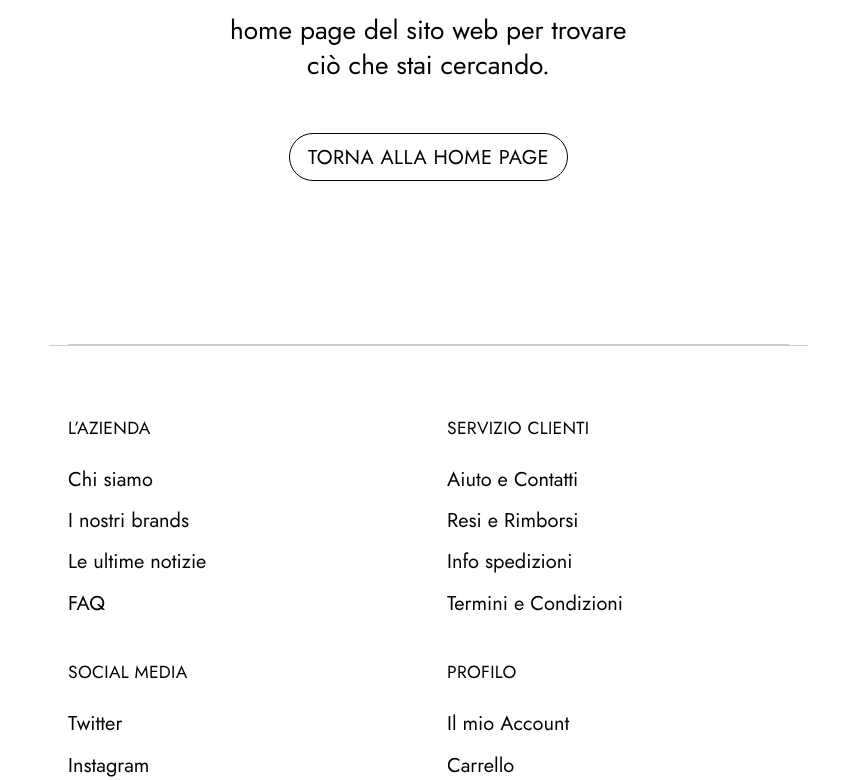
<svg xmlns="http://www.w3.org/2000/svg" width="856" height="780">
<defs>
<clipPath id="clip1"><rect x="448" y="751" width="341" height="28"/></clipPath>
</defs>
<rect width="100%" height="100%" fill="#fff"/>
<text x="230" y="39" style="font-family:Jost;font-size:26.25px;fill:#000">home page del sito web per trovare</text>
<text x="307" y="74" style="font-family:Jost;font-size:26.25px;fill:#000">ciò che stai cercando.</text>
<rect x="289.5" y="133.5" width="278" height="47" rx="23.5" fill="none" stroke="#000"/>
<text x="308" y="164" style="font-family:Jost;font-size:20px;letter-spacing:0.4px;fill:#000">TORNA ALLA HOME PAGE</text>
<rect x="68" y="344" width="721" height="1" fill="#ccc"/>
<rect x="49" y="345" width="759" height="1" fill="#ccc"/>
<text x="68" y="434" style="font-family:Jost;font-size:17.5px;letter-spacing:0.3px;fill:#000">L’AZIENDA</text>
<text x="68" y="486" style="font-family:Jost;font-size:20px;fill:#000">Chi siamo</text>
<text x="68" y="527" style="font-family:Jost;font-size:20px;fill:#000">I nostri brands</text>
<text x="68" y="568" style="font-family:Jost;font-size:20px;fill:#000">Le ultime notizie</text>
<text x="68" y="610" style="font-family:Jost;font-size:20px;fill:#000">FAQ</text>
<text x="447" y="434" style="font-family:Jost;font-size:17.5px;letter-spacing:0.3px;fill:#000">SERVIZIO CLIENTI</text>
<text x="447" y="486" style="font-family:Jost;font-size:20px;fill:#000">Aiuto e Contatti</text>
<text x="447" y="527" style="font-family:Jost;font-size:20px;fill:#000">Resi e Rimborsi</text>
<text x="447" y="568" style="font-family:Jost;font-size:20px;fill:#000">Info spedizioni</text>
<text x="447" y="610" style="font-family:Jost;font-size:20px;fill:#000">Termini e Condizioni</text>
<text x="68" y="678" style="font-family:Jost;font-size:17.5px;letter-spacing:0.3px;fill:#000">SOCIAL MEDIA</text>
<text x="68" y="730" style="font-family:Jost;font-size:20px;fill:#000">Twitter</text>
<text x="68" y="772" style="font-family:Jost;font-size:20px;fill:#000">Instagram</text>
<text x="447" y="678" style="font-family:Jost;font-size:17.5px;letter-spacing:0.3px;fill:#000">PROFILO</text>
<text x="447" y="730" style="font-family:Jost;font-size:20px;fill:#000">Il mio Account</text>
<g clip-path="url(#clip1)">
<text x="447" y="772" style="font-family:Jost;font-size:20px;fill:#000">Carrello</text>
</g>
</svg>
